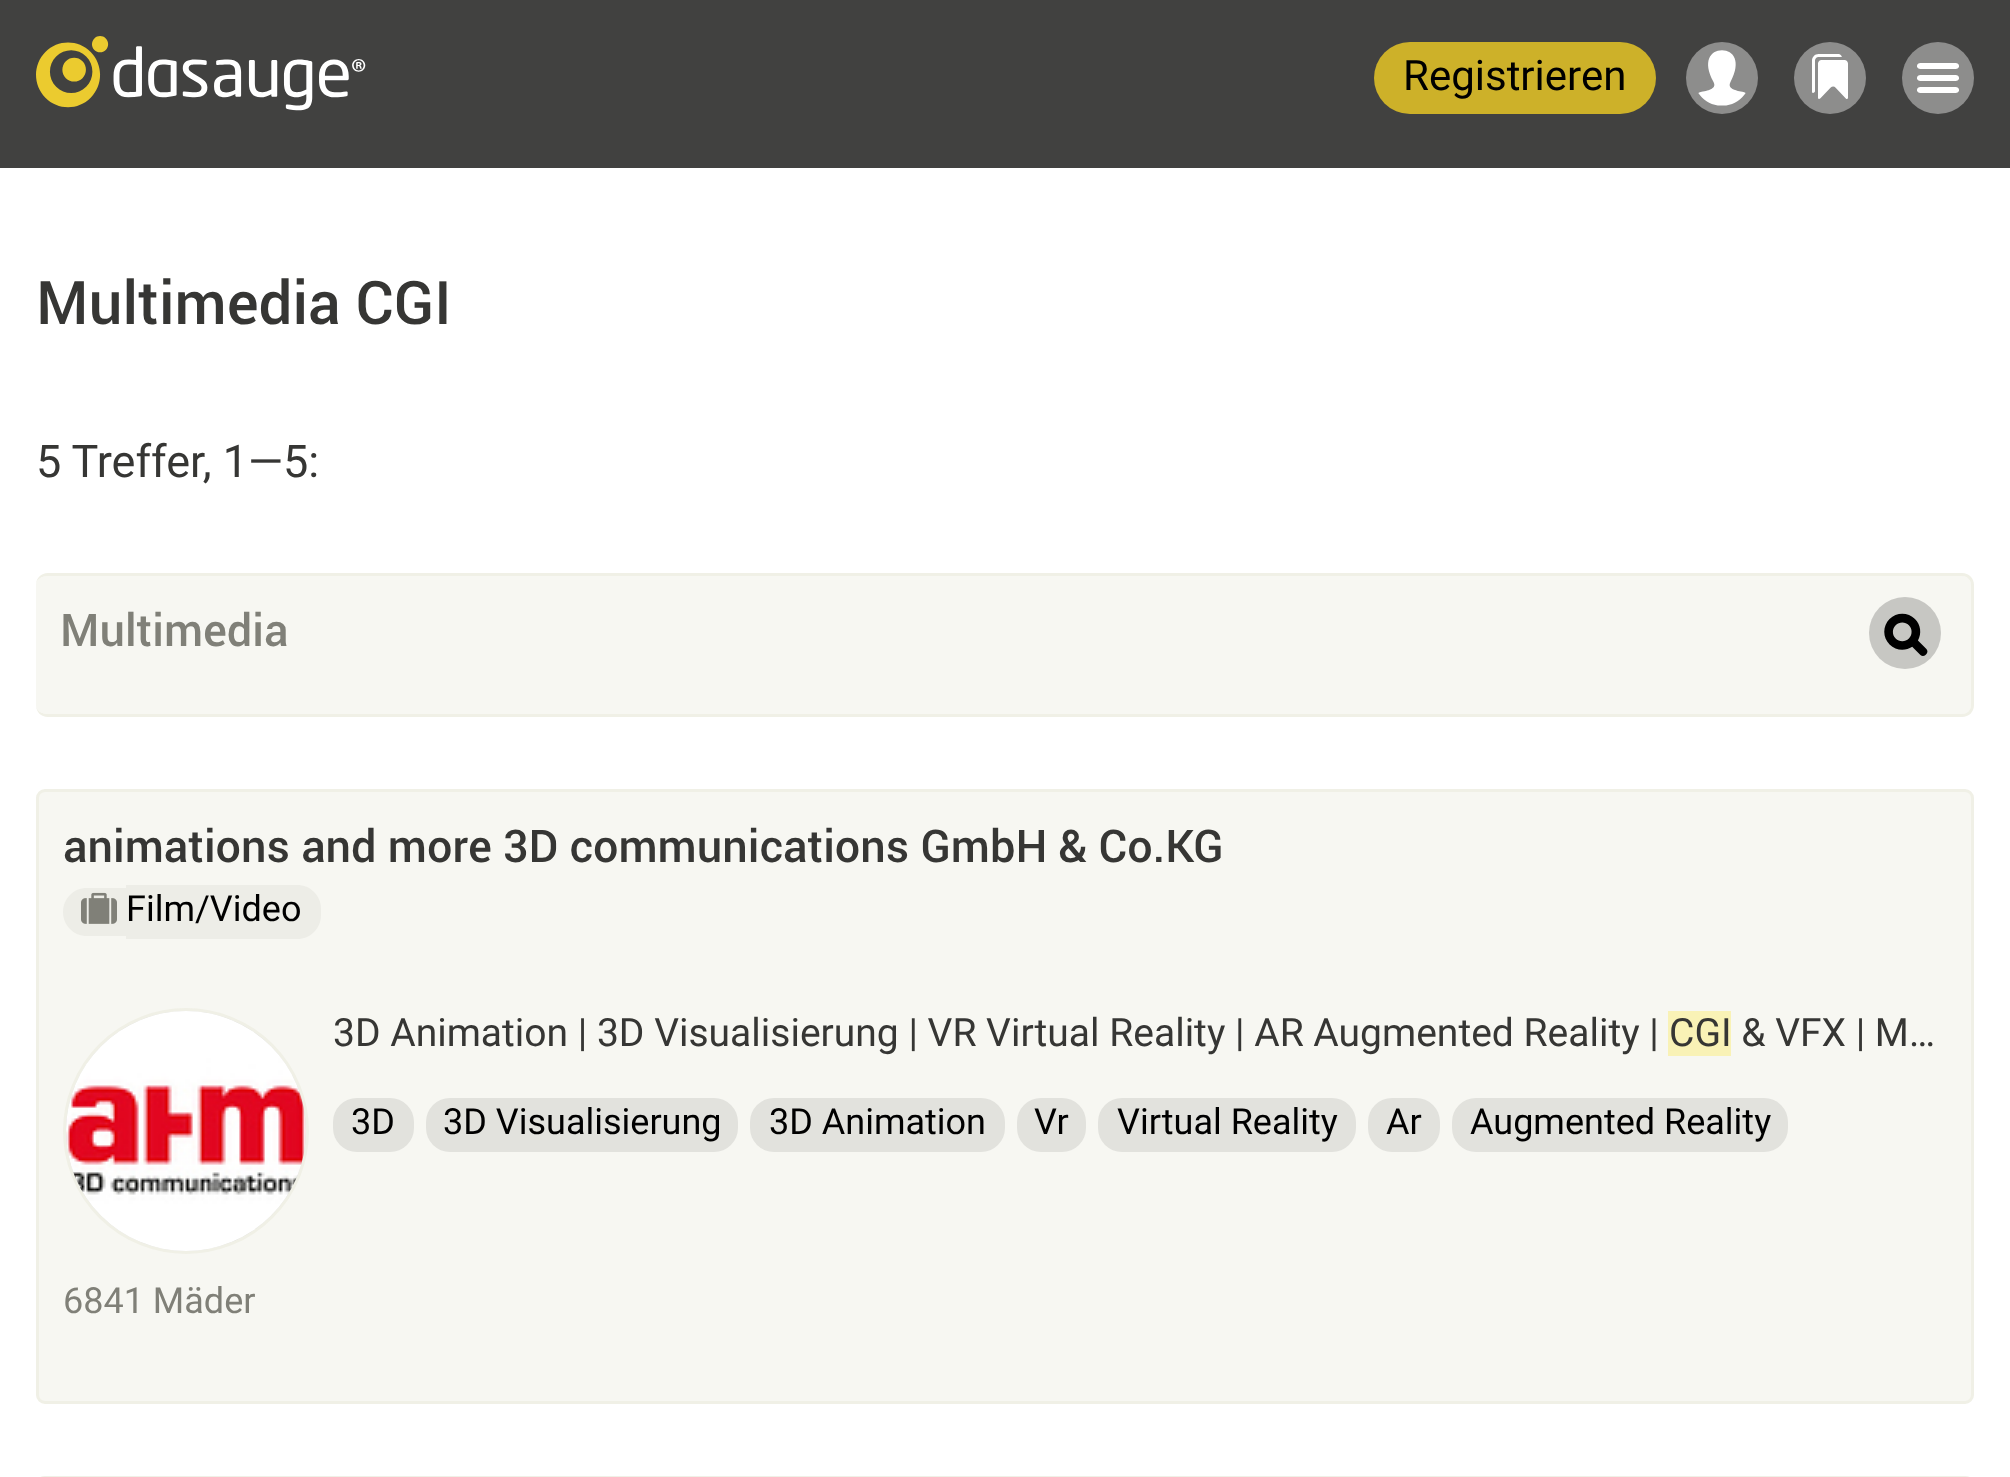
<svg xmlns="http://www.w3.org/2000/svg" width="2010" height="1477">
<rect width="100%" height="100%" fill="#fff"/>
<rect width="2010" height="168" fill="#414140"/>
<image x="36" y="36" width="330" height="75" href="media/1.png"/>
<rect x="1374" y="42" width="282" height="72" rx="36" fill="#cdb129"/>
<text x="1403" y="90" style="font-family:Roboto;font-size:42px;fill:#000">Registrieren</text>
<image x="1686" y="42" width="72" height="72" href="media/2.png"/>
<image x="1794" y="42" width="72" height="72" href="media/3.png"/>
<image x="1902" y="42" width="72" height="72" href="media/4.png"/>
<text x="36" y="324" style="font-family:Roboto;font-size:60px;font-weight:500;fill:#363634">Multimedia CGI</text>
<text x="36" y="477" style="font-family:Roboto;font-size:45px;fill:#363634">5 Treffer, 1—5:</text>
<path d="M48 576h1914c5 0 9 4 9 9v120c0 5-4 9-9 9h-1914c-7 0-12-4-12-9v-120c0-5 5-9 12-9z" fill="#f7f7f2"/>
<path d="M48 573h1914c7 0 12 5 12 12v120c0 7-5 12-12 12h-1914c-7 0-12-5-12-12v-120c0-7 5-12 12-12zm0 3h1914c5 0 9 4 9 9v120c0 5-4 9-9 9h-1914c-7 0-12-4-12-9v-120c0-5 5-9 12-9z" fill="#f0f0e6" fill-rule="evenodd"/>
<text x="60" y="646" style="font-family:Roboto;font-size:45px;font-weight:500;fill:#808078">Multimedia</text>
<image x="1869" y="597" width="72" height="72" href="media/5.png"/>
<rect x="37.5" y="790.5" width="1935" height="612" rx="7.5" fill="#f7f7f2" stroke="#f0f0e6" stroke-width="3"/>
<text x="63" y="862" style="font-family:Roboto;font-size:45px;font-weight:500;fill:#363634">animations and more 3D communications GmbH &amp; Co.KG</text>
<path d="M87 888h39v48h-39c-13.5 0-24-10.5-24-24c0-13.5 10.5-24 24-24z" fill="#edede7"/>
<image x="81" y="892" width="36" height="32" href="media/6.png"/>
<path d="M126 885h171c13.5 0 24 10.5 24 24v6c0 13.5-10.5 24-24 24h-171z" fill="#edede7"/>
<text x="126" y="921" style="font-family:Roboto;font-size:36px;fill:#000">Film/Video</text>
<circle cx="186" cy="1131" r="121.5" fill="#dbdbd6" stroke="#f0f0e6" stroke-width="3"/>
<image x="66" y="1011" width="240" height="240" href="media/7.png"/>
<text x="333" y="1046" style="font-family:Roboto;font-size:39px;fill:#363634">3D Animation | 3D Visualisierung | VR Virtual Reality | AR Augmented Reality |</text>
<rect x="1668" y="1011" width="63" height="45" fill="#f9f2b6"/>
<text x="1669" y="1046" style="font-family:Roboto;font-size:39px;fill:#363634">CGI &amp; VFX | M…</text>
<rect x="333" y="1098" width="81" height="54" rx="24" fill="#e2e2dd"/>
<text x="351" y="1134" style="font-family:Roboto;font-size:36px;fill:#000">3D</text>
<rect x="426" y="1098" width="312" height="54" rx="24" fill="#e2e2dd"/>
<text x="443" y="1134" style="font-family:Roboto;font-size:36px;fill:#000">3D Visualisierung</text>
<rect x="750" y="1098" width="255" height="54" rx="24" fill="#e2e2dd"/>
<text x="769" y="1134" style="font-family:Roboto;font-size:36px;fill:#000">3D Animation</text>
<rect x="1017" y="1098" width="69" height="54" rx="24" fill="#e2e2dd"/>
<text x="1034" y="1134" style="font-family:Roboto;font-size:36px;fill:#000">Vr</text>
<rect x="1098" y="1098" width="258" height="54" rx="24" fill="#e2e2dd"/>
<text x="1117" y="1134" style="font-family:Roboto;font-size:36px;fill:#000">Virtual Reality</text>
<rect x="1368" y="1098" width="72" height="54" rx="24" fill="#e2e2dd"/>
<text x="1386" y="1134" style="font-family:Roboto;font-size:36px;fill:#000">Ar</text>
<rect x="1452" y="1098" width="336" height="54" rx="24" fill="#e2e2dd"/>
<text x="1470" y="1134" style="font-family:Roboto;font-size:36px;fill:#000">Augmented Reality</text>
<text x="63" y="1313" style="font-family:Roboto;font-size:36px;fill:#808078">6841 Mäder</text>
<rect x="37.5" y="1477.5" width="1935" height="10" rx="7.5" fill="none" stroke="#f0f0e6" stroke-width="3"/>
</svg>
